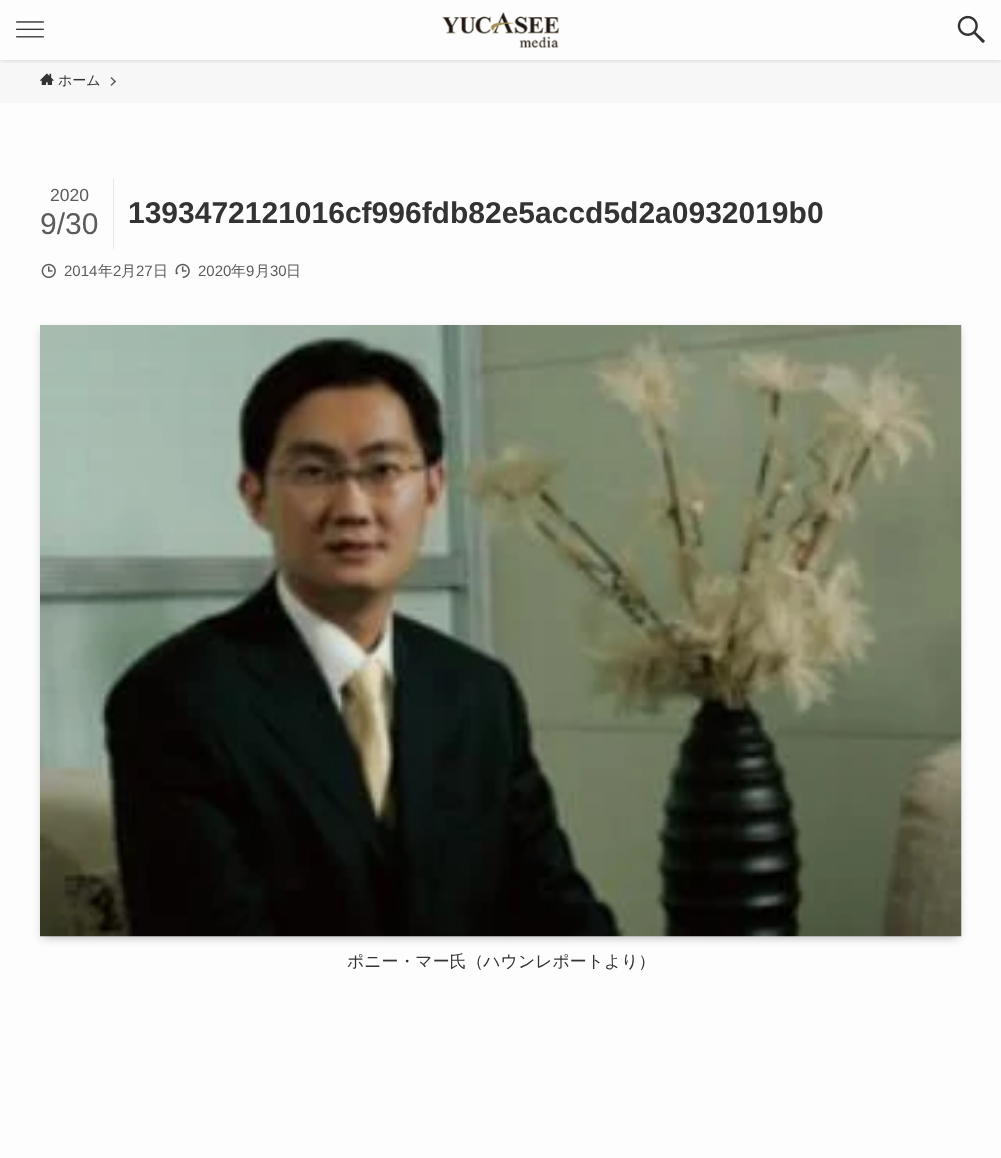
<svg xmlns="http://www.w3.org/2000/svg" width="1001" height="1158">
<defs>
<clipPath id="clip1"><rect x="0" y="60" width="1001" height="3"/></clipPath>
</defs>
<rect width="100%" height="100%" fill="#fdfdfd"/>
<rect y="60" width="1001" height="43" fill="#f7f7f7"/>
<g clip-path="url(#clip1)">
<rect y="1" width="1001" height="60" fill="#0000001f" filter="blur(2.5px)"/>
</g>
<image x="16" y="21" width="28" height="17" href="media/1.png"/>
<image x="442" y="12" width="117" height="36" href="media/2.png"/>
<image x="957" y="15" width="28" height="28" href="media/3.png"/>
<image x="40" y="73" width="14" height="12" href="media/4.png"/>
<text x="58" y="85" style="font-family:WenQuanYi Zen Hei;font-size:14px;font-weight:500;fill:#333">ホーム</text>
<path d="M111.5 77l4.5 4.5l-1 1l-4.5-4.5z" fill="#5a5a5a"/>
<path d="M115 80.5l1 1l-4.5 4.5l-1-1z" fill="#5a5a5a"/>
<rect x="113" y="178" width="1" height="71" fill="#e8e8e8"/>
<text x="50" y="201" style="font-family:Liberation Sans;font-size:17.5px;fill:#5b5b5b">2020</text>
<text x="40" y="234" style="font-family:Liberation Sans;font-size:30px;fill:#5b5b5b">9/30</text>
<text x="128" y="223" style="font-family:Liberation Sans;font-size:30px;font-weight:bold;fill:#333">1393472121016cf996fdb82e5accd5d2a0932019b0</text>
<image x="41" y="263" width="15" height="16" href="media/5.png"/>
<text x="64" y="276" style="font-family:Liberation Sans;font-size:15px;fill:#5b5b5b">2014</text>
<text x="98" y="276" style="font-family:WenQuanYi Zen Hei;font-size:15px;font-weight:500;fill:#5b5b5b">年</text>
<text x="113" y="276" style="font-family:Liberation Sans;font-size:15px;fill:#5b5b5b">2</text>
<text x="121" y="276" style="font-family:WenQuanYi Zen Hei;font-size:15px;font-weight:500;fill:#5b5b5b">月</text>
<text x="136" y="276" style="font-family:Liberation Sans;font-size:15px;fill:#5b5b5b">27</text>
<text x="153" y="276" style="font-family:WenQuanYi Zen Hei;font-size:15px;font-weight:500;fill:#5b5b5b">日</text>
<image x="175" y="263" width="15" height="15" href="media/6.png"/>
<text x="198" y="276" style="font-family:Liberation Sans;font-size:15px;fill:#5b5b5b">2020</text>
<text x="231" y="276" style="font-family:WenQuanYi Zen Hei;font-size:15px;font-weight:500;fill:#5b5b5b">年</text>
<text x="246" y="276" style="font-family:Liberation Sans;font-size:15px;fill:#5b5b5b">9</text>
<text x="255" y="276" style="font-family:WenQuanYi Zen Hei;font-size:15px;font-weight:500;fill:#5b5b5b">月</text>
<text x="270" y="276" style="font-family:Liberation Sans;font-size:15px;fill:#5b5b5b">30</text>
<text x="286" y="276" style="font-family:WenQuanYi Zen Hei;font-size:15px;font-weight:500;fill:#5b5b5b">日</text>
<rect x="45" y="335" width="911" height="601" fill="#00000033" filter="blur(5px)"/>
<rect x="40" y="328" width="921" height="611" fill="#0000001a" filter="blur(5px)"/>
<image x="40" y="325" width="922" height="612" href="media/7.png"/>
<text x="347" y="967" style="font-family:WenQuanYi Zen Hei;font-size:16.9px;font-weight:500;fill:#333">ポニー・マー氏（ハウンレポートより）</text>
</svg>
